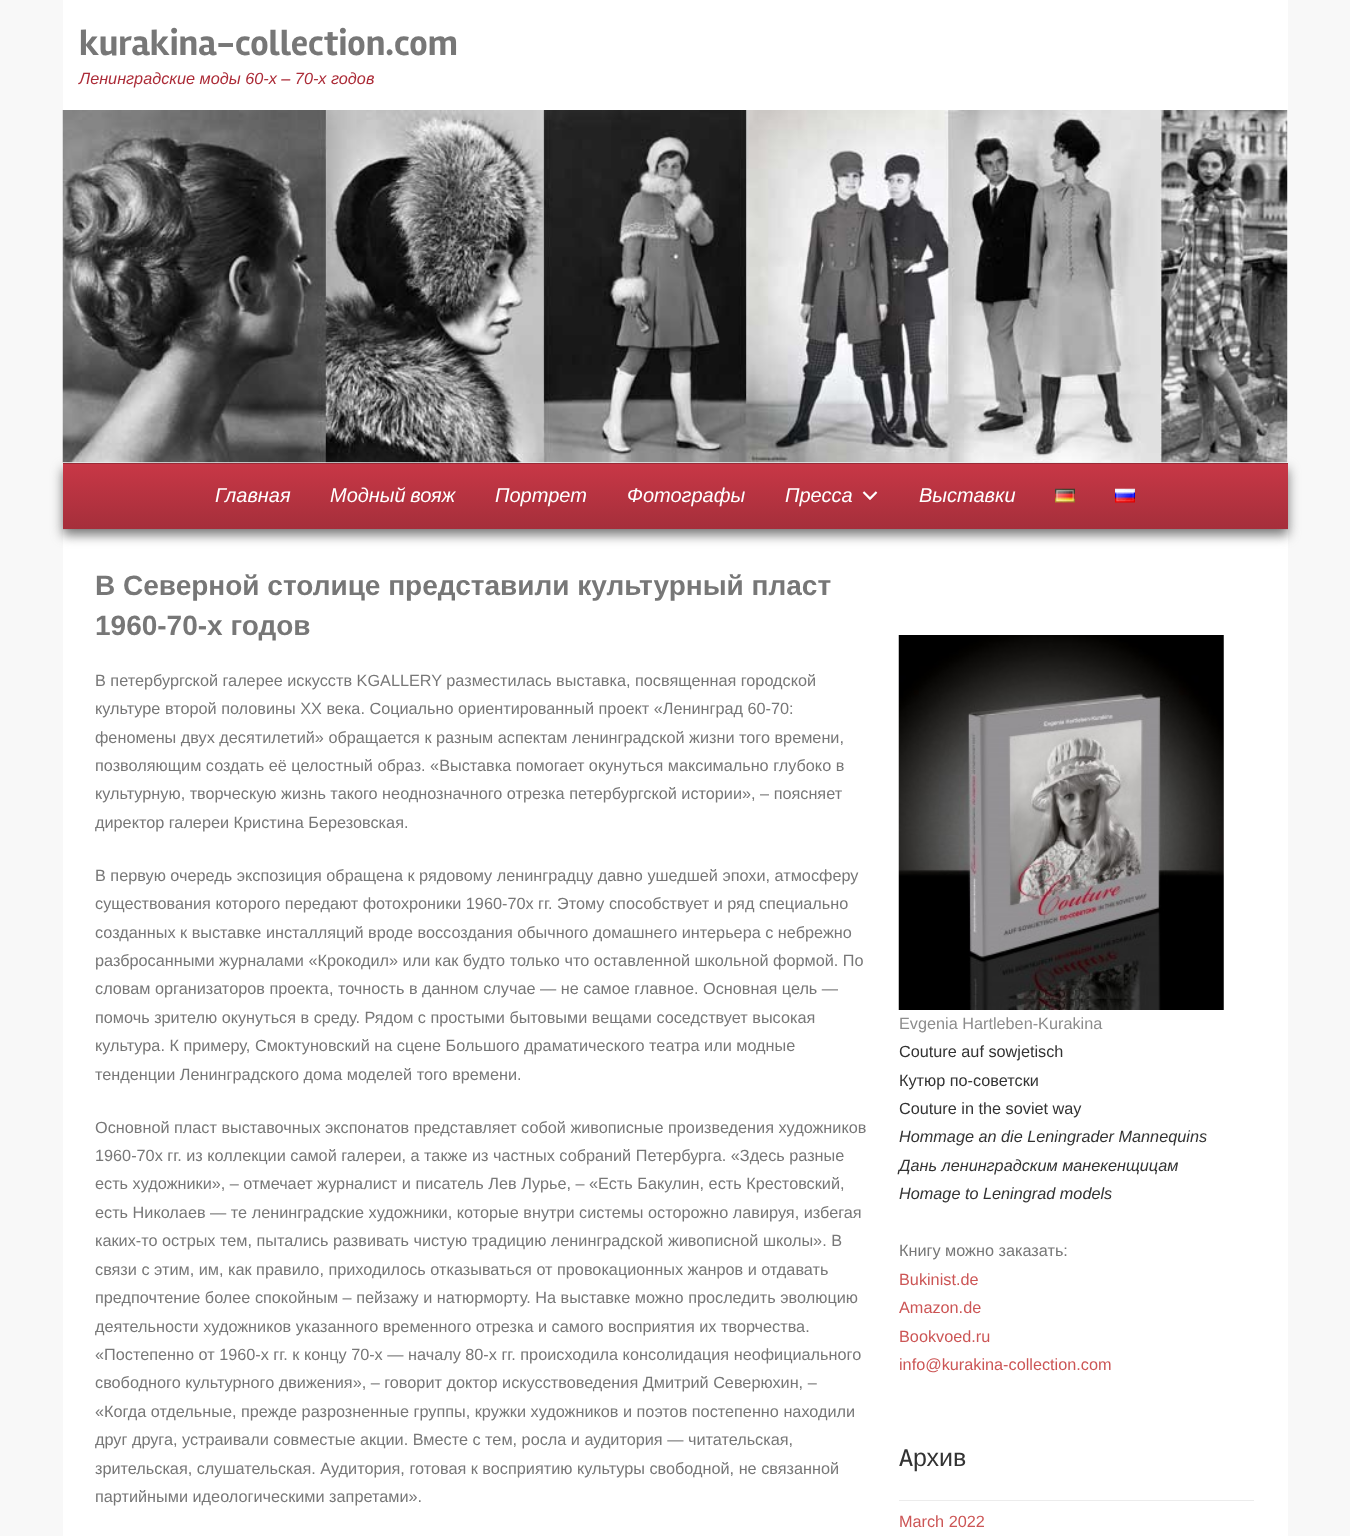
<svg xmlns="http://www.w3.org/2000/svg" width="1350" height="1536">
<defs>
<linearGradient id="g1" gradientUnits="userSpaceOnUse" x1="675" y1="464" x2="675" y2="529"><stop offset="0" stop-color="#c83746"/><stop offset="1" stop-color="#a52f3b"/></linearGradient>
</defs>
<rect width="100%" height="100%" fill="#f8f8f8"/>
<rect x="63" width="1225" height="1536" fill="#fff"/>
<rect x="63" y="529" width="1225" height="1" fill="#ececec"/>
<text x="79" y="55" style="font-family:Rambla;font-size:36px;font-weight:bold;fill:#777">kurakina-collection.com</text>
<text x="79" y="84" style="font-family:Liberation Sans;font-size:16.25px;font-style:italic;fill:#ac2c38">Ленинградские моды 60-х – 70-х годов</text>
<rect x="63" y="469" width="1225" height="66" fill="#777" filter="blur(6px)"/>
<image x="62" y="110" width="1226" height="353" href="media/1.png"/>
<rect x="63" y="464" width="1225" height="65" fill="url(#g1)"/>
<rect x="63" y="463" width="1225" height="1" fill="#992b37"/>
<text x="215" y="502" style="font-family:Liberation Sans;font-size:20px;font-style:italic;fill:#fff">Главная</text>
<text x="330" y="502" word-spacing="-1" style="font-family:Liberation Sans;font-size:20px;font-style:italic;fill:#fff">Модный вояж</text>
<text x="495" y="502" style="font-family:Liberation Sans;font-size:20px;font-style:italic;fill:#fff">Портрет</text>
<text x="627" y="502" style="font-family:Liberation Sans;font-size:20px;font-style:italic;fill:#fff">Фотографы</text>
<text x="785" y="502" style="font-family:Liberation Sans;font-size:20px;font-style:italic;fill:#fff">Пресса</text>
<image x="862" y="491" width="16" height="9" href="media/2.png"/>
<text x="919" y="502" style="font-family:Liberation Sans;font-size:20px;font-style:italic;fill:#fff">Выставки</text>
<image x="1055" y="488" width="20" height="15" href="media/3.png"/>
<image x="1115" y="488" width="20" height="15" href="media/4.png"/>
<text x="95" y="595" style="font-family:Liberation Sans;font-size:28px;font-weight:bold;fill:#777">В Северной столице представили культурный пласт</text>
<text x="95" y="635" style="font-family:Liberation Sans;font-size:28px;font-weight:bold;fill:#777">1960-70-х годов</text>
<text x="95" y="686" style="font-family:Liberation Sans;font-size:16.25px;fill:#777">В петербургской галерее искусств KGALLERY разместилась выставка, посвященная городской</text>
<text x="95" y="714" style="font-family:Liberation Sans;font-size:16.25px;fill:#777">культуре второй половины XX века. Социально ориентированный проект «Ленинград 60-70:</text>
<text x="95" y="743" style="font-family:Liberation Sans;font-size:16.25px;fill:#777">феномены двух десятилетий» обращается к разным аспектам ленинградской жизни того времени,</text>
<text x="95" y="771" style="font-family:Liberation Sans;font-size:16.25px;fill:#777">позволяющим создать её целостный образ. «Выставка помогает окунуться максимально глубоко в</text>
<text x="95" y="799" style="font-family:Liberation Sans;font-size:16.25px;fill:#777">культурную, творческую жизнь такого неоднозначного отрезка петербургской истории», – поясняет</text>
<text x="95" y="828" style="font-family:Liberation Sans;font-size:16.25px;fill:#777">директор галереи Кристина Березовская.</text>
<text x="95" y="881" style="font-family:Liberation Sans;font-size:16.25px;fill:#777">В первую очередь экспозиция обращена к рядовому ленинградцу давно ушедшей эпохи, атмосферу</text>
<text x="95" y="909" style="font-family:Liberation Sans;font-size:16.25px;fill:#777">существования которого передают фотохроники 1960-70х гг. Этому способствует и ряд специально</text>
<text x="95" y="938" style="font-family:Liberation Sans;font-size:16.25px;fill:#777">созданных к выставке инсталляций вроде воссоздания обычного домашнего интерьера с небрежно</text>
<text x="95" y="966" style="font-family:Liberation Sans;font-size:16.25px;fill:#777">разбросанными журналами «Крокодил» или как будто только что оставленной школьной формой. По</text>
<text x="95" y="994" style="font-family:Liberation Sans;font-size:16.25px;fill:#777">словам организаторов проекта, точность в данном случае — не самое главное. Основная цель —</text>
<text x="95" y="1023" style="font-family:Liberation Sans;font-size:16.25px;fill:#777">помочь зрителю окунуться в среду. Рядом с простыми бытовыми вещами соседствует высокая</text>
<text x="95" y="1051" style="font-family:Liberation Sans;font-size:16.25px;fill:#777">культура. К примеру, Смоктуновский на сцене Большого драматического театра или модные</text>
<text x="95" y="1080" style="font-family:Liberation Sans;font-size:16.25px;fill:#777">тенденции Ленинградского дома моделей того времени.</text>
<text x="95" y="1133" style="font-family:Liberation Sans;font-size:16.25px;fill:#777">Основной пласт выставочных экспонатов представляет собой живописные произведения художников</text>
<text x="95" y="1161" style="font-family:Liberation Sans;font-size:16.25px;fill:#777">1960-70х гг. из коллекции самой галереи, а также из частных собраний Петербурга. «Здесь разные</text>
<text x="95" y="1189" style="font-family:Liberation Sans;font-size:16.25px;fill:#777">есть художники», – отмечает журналист и писатель Лев Лурье, – «Есть Бакулин, есть Крестовский,</text>
<text x="95" y="1218" style="font-family:Liberation Sans;font-size:16.25px;fill:#777">есть Николаев — те ленинградские художники, которые внутри системы осторожно лавируя, избегая</text>
<text x="95" y="1246" style="font-family:Liberation Sans;font-size:16.25px;fill:#777">каких-то острых тем, пытались развивать чистую традицию ленинградской живописной школы». В</text>
<text x="95" y="1275" style="font-family:Liberation Sans;font-size:16.25px;fill:#777">связи с этим, им, как правило, приходилось отказываться от провокационных жанров и отдавать</text>
<text x="95" y="1303" style="font-family:Liberation Sans;font-size:16.25px;fill:#777">предпочтение более спокойным – пейзажу и натюрморту. На выставке можно проследить эволюцию</text>
<text x="95" y="1332" style="font-family:Liberation Sans;font-size:16.25px;fill:#777">деятельности художников указанного временного отрезка и самого восприятия их творчества.</text>
<text x="95" y="1360" style="font-family:Liberation Sans;font-size:16.25px;fill:#777">«Постепенно от 1960-х гг. к концу 70-х — началу 80-х гг. происходила консолидация неофициального</text>
<text x="95" y="1388" style="font-family:Liberation Sans;font-size:16.25px;fill:#777">свободного культурного движения», – говорит доктор искусствоведения Дмитрий Северюхин, –</text>
<text x="95" y="1417" style="font-family:Liberation Sans;font-size:16.25px;fill:#777">«Когда отдельные, прежде разрозненные группы, кружки художников и поэтов постепенно находили</text>
<text x="95" y="1445" style="font-family:Liberation Sans;font-size:16.25px;fill:#777">друг друга, устраивали совместые акции. Вместе с тем, росла и аудитория — читательская,</text>
<text x="95" y="1474" style="font-family:Liberation Sans;font-size:16.25px;fill:#777">зрительская, слушательская. Аудитория, готовая к восприятию культуры свободной, не связанной</text>
<text x="95" y="1502" style="font-family:Liberation Sans;font-size:16.25px;fill:#777">партийными идеологическими запретами».</text>
<image x="898" y="635" width="326" height="375" href="media/5.png"/>
<text x="899" y="1029" style="font-family:Liberation Sans;font-size:16.25px;fill:#8c8c8c">Evgenia Hartleben-Kurakina</text>
<text x="899" y="1057" style="font-family:Liberation Sans;font-size:16.25px;fill:#333">Couture auf sowjetisch</text>
<text x="899" y="1086" style="font-family:Liberation Sans;font-size:16.25px;fill:#333">Кутюр по-советски</text>
<text x="899" y="1114" style="font-family:Liberation Sans;font-size:16.25px;fill:#333">Couture in the soviet way</text>
<text x="899" y="1142" style="font-family:Liberation Sans;font-size:16.25px;font-style:italic;fill:#333">Hommage an die Leningrader Mannequins</text>
<text x="899" y="1171" style="font-family:Liberation Sans;font-size:16.25px;font-style:italic;fill:#333">Дань ленинградским манекенщицам</text>
<text x="899" y="1199" style="font-family:Liberation Sans;font-size:16.25px;font-style:italic;fill:#333">Homage to Leningrad models</text>
<text x="899" y="1256" style="font-family:Liberation Sans;font-size:16.25px;fill:#777">Книгу можно заказать:</text>
<text x="899" y="1285" style="font-family:Liberation Sans;font-size:16.25px;fill:#c55">Bukinist.de</text>
<text x="899" y="1313" style="font-family:Liberation Sans;font-size:16.25px;fill:#c55">Amazon.de</text>
<text x="899" y="1342" style="font-family:Liberation Sans;font-size:16.25px;fill:#c55">Bookvoed.ru</text>
<text x="899" y="1370" style="font-family:Liberation Sans;font-size:16.25px;fill:#c55">info@kurakina-collection.com</text>
<text x="899" y="1466" style="font-family:Rambla;font-size:25px;fill:#333">A</text>
<text x="913" y="1466" style="font-family:Liberation Sans;font-size:25px;fill:#333">рхив</text>
<rect x="899" y="1500" width="355" height="1" fill="#ececec"/>
<text x="899" y="1527" style="font-family:Liberation Sans;font-size:16.25px;fill:#c55">March 2022</text>
</svg>
